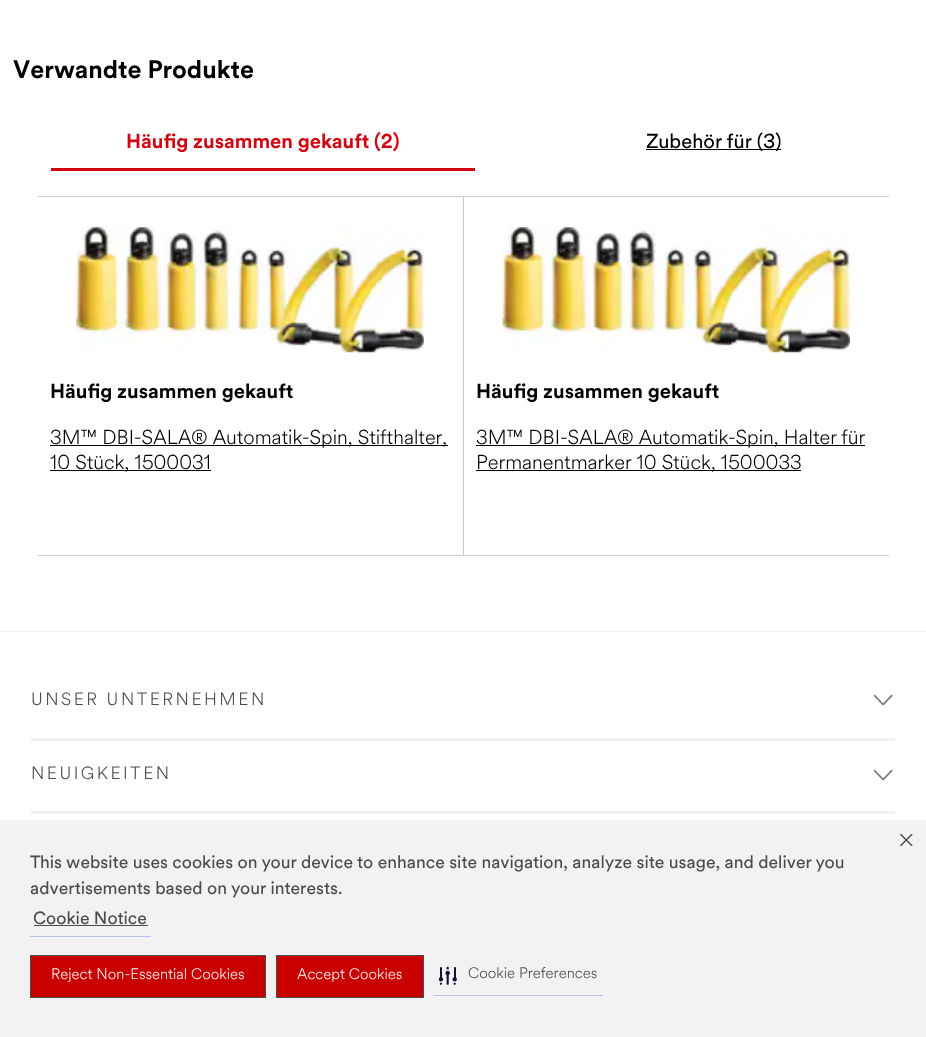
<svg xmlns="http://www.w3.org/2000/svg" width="926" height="1037">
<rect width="100%" height="100%" fill="#fff"/>
<text x="13" y="78" style="font-family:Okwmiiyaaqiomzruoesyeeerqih;font-size:25px;font-weight:bold;fill:#000">Verwandte Produkte</text>
<text x="126" y="148" style="font-family:Okwmiiyaaqiomzruoesyeeerqih;font-size:20px;font-weight:bold;fill:#d10411">Häufig zusammen gekauft (2)</text>
<rect x="51" y="168" width="424" height="3" fill="#d10411"/>
<rect x="646" y="149" width="135" height="1" fill="#000"/>
<text x="646" y="148" style="font-family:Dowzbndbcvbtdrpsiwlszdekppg;font-size:20px;fill:#000">Zubehör für (3)</text>
<rect x="38" y="196" width="851" height="1" fill="#ccc"/>
<rect x="463" y="196" width="1" height="360" fill="#ccc"/>
<rect x="38" y="555" width="851" height="1" fill="#ccc"/>
<image x="76" y="227" width="348" height="126" href="media/1.png"/>
<text x="50" y="398" style="font-family:Okwmiiyaaqiomzruoesyeeerqih;font-size:20px;font-weight:bold;fill:#000">Häufig zusammen gekauft</text>
<rect x="50" y="445" width="398" height="1" fill="#000"/>
<text x="50" y="444" style="font-family:'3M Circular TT';font-size:20px;font-weight:300;fill:#000">3M™ DBI-SALA® Automatik-Spin, Stifthalter,</text>
<rect x="50" y="470" width="161" height="1" fill="#000"/>
<text x="50" y="469" style="font-family:'3M Circular TT';font-size:20px;font-weight:300;fill:#000">10 Stück, 1500031</text>
<image x="502" y="227" width="348" height="126" href="media/2.png"/>
<text x="476" y="398" style="font-family:Okwmiiyaaqiomzruoesyeeerqih;font-size:20px;font-weight:bold;fill:#000">Häufig zusammen gekauft</text>
<rect x="476" y="445" width="389" height="1" fill="#000"/>
<text x="476" y="444" style="font-family:'3M Circular TT';font-size:20px;font-weight:300;fill:#000">3M™ DBI-SALA® Automatik-Spin, Halter für</text>
<rect x="476" y="470" width="325" height="1" fill="#000"/>
<text x="476" y="469" style="font-family:'3M Circular TT';font-size:20px;font-weight:300;fill:#000">Permanentmarker 10 Stück, 1500033</text>
<rect y="631" width="926" height="1" fill="#f2f2f2"/>
<rect x="31" y="738" width="864" height="3" fill="#f2f2f2"/>
<text x="31" y="705" style="font-family:'3M Circular TT';font-size:17.5px;font-weight:300;letter-spacing:2.5px;fill:#4b4b4b">UNSER UNTERNEHMEN</text>
<image x="873" y="694" width="20" height="12" href="media/3.png"/>
<rect x="31" y="811" width="864" height="3" fill="#f2f2f2"/>
<text x="31" y="779" style="font-family:'3M Circular TT';font-size:17.5px;font-weight:300;letter-spacing:2.5px;fill:#4b4b4b">NEUIGKEITEN</text>
<image x="873" y="769" width="20" height="12" href="media/3.png"/>
<rect y="820" width="926" height="217" fill="#f2f2f2"/>
<text x="30" y="868" style="font-family:Dowzbndbcvbtdrpsiwlszdekppg;font-size:17.5px;fill:#4b4b4b">This website uses cookies on your device to enhance site navigation, analyze site usage, and deliver you</text>
<text x="30" y="894" style="font-family:Dowzbndbcvbtdrpsiwlszdekppg;font-size:17.5px;fill:#4b4b4b">advertisements based on your interests.</text>
<rect x="30" y="936" width="121" height="1" fill="#b6c2e9"/>
<text x="33" y="924" style="font-family:Dowzbndbcvbtdrpsiwlszdekppg;font-size:17.5px;fill:#4b4b4b">Cookie Notice</text>
<rect x="34" y="925" width="114" height="1" fill="#4b4b4b"/>
<image x="900" y="834" width="13" height="12" href="media/4.png"/>
<rect x="30.5" y="955.5" width="235" height="42" fill="#c80000" stroke="#4b4b4b"/>
<text x="51" y="979" style="font-family:'3M Circular TT';font-size:15px;font-weight:300;fill:#f2f2f2">Reject Non-Essential Cookies</text>
<rect x="276.5" y="955.5" width="147" height="42" fill="#c80000" stroke="#4b4b4b"/>
<text x="297" y="979" style="font-family:'3M Circular TT';font-size:15px;font-weight:300;fill:#f2f2f2">Accept Cookies</text>
<rect x="434" y="995" width="169" height="1" fill="#b6c2e9"/>
<image x="439" y="966" width="18" height="19" href="media/5.png"/>
<text x="468" y="978" style="font-family:'3M Circular TT';font-size:15px;font-weight:300;fill:#4b4b4b">Cookie Preferences</text>
</svg>
